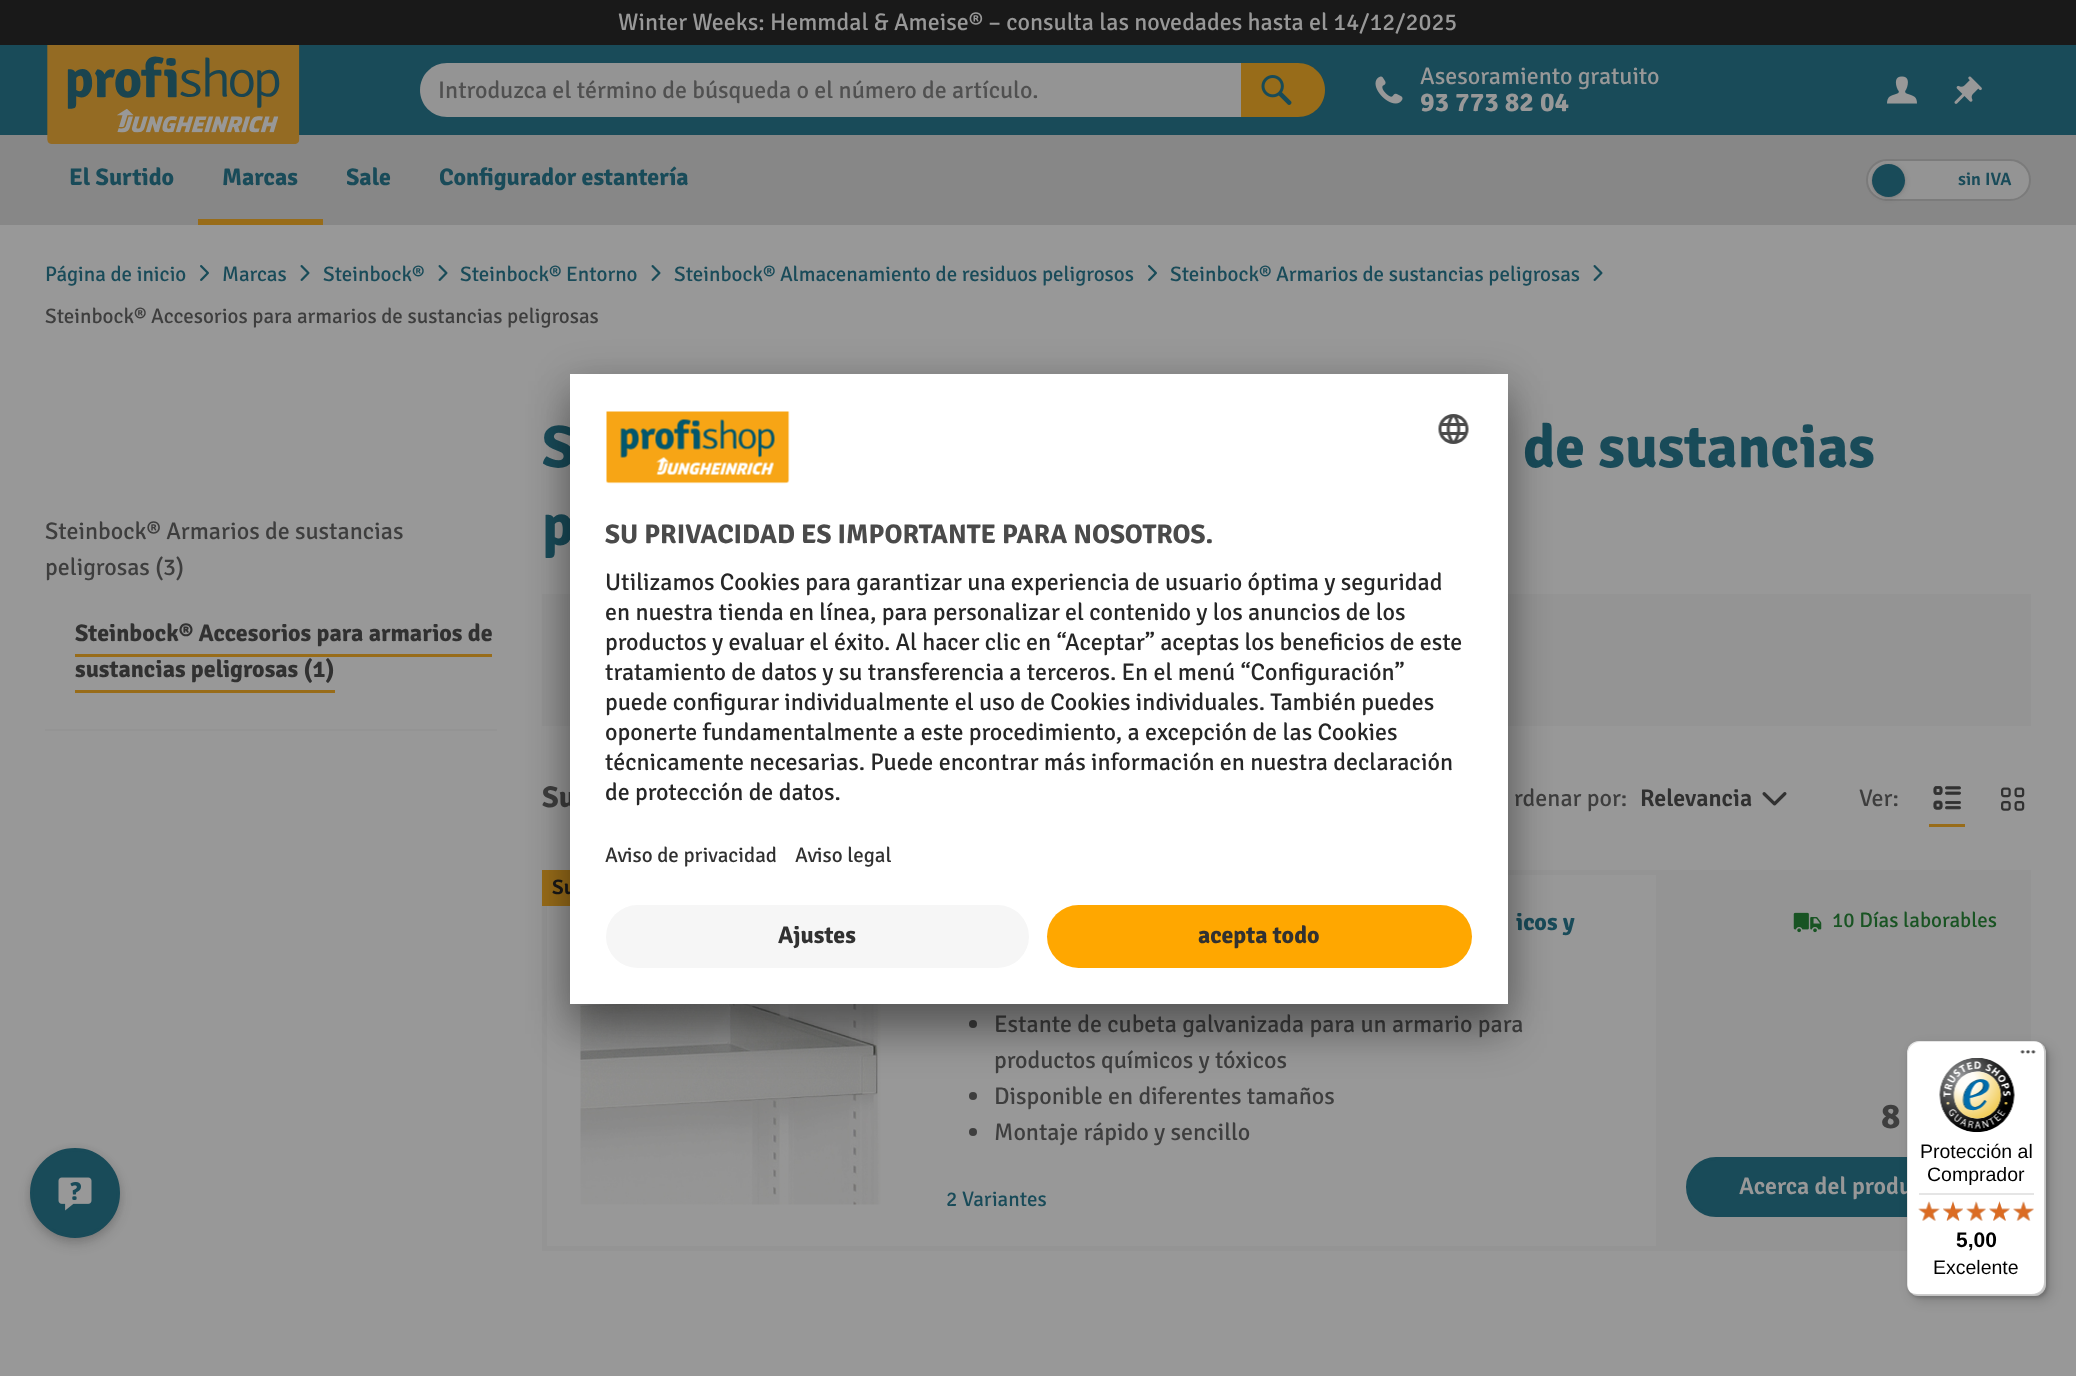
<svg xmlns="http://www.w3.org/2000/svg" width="2076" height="1376">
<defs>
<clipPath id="clip1"><rect x="347" y="159" width="45" height="36"/></clipPath>
<clipPath id="clip2"><rect x="440" y="159" width="249" height="36"/></clipPath>
</defs>
<rect width="100%" height="100%" fill="#989898"/>
<rect width="2076" height="45" fill="#191919"/>
<text x="618" y="30" style="font-family:Signika;font-size:24px;font-weight:300;fill:#989898">Winter Weeks: Hemmdal &amp; Ameise® – consulta las novedades hasta el 14/12/2025</text>
<rect y="45" width="2076" height="90" fill="#194b59"/>
<rect y="135" width="2076" height="90" fill="#878787"/>
<image x="47" y="45" width="253" height="99" href="media/1.png"/>
<path d="M447 63h794v54h-794c-15 0-27-12-27-27c0-15 12-27 27-27z" fill="#949494"/>
<text x="438" y="98" style="font-family:Signika;font-size:24px;font-weight:300;fill:#505050">Introduzca el término de búsqueda o el número de artículo.</text>
<path d="M1241 63h57c15 0 27 12 27 27c0 15-12 27-27 27h-57z" fill="#986c19"/>
<image x="1261" y="75" width="31" height="30" href="media/2.png"/>
<image x="1375" y="76" width="28" height="28" href="media/3.png"/>
<text x="1420" y="84" style="font-family:Signika;font-size:24px;font-weight:300;fill:#989898">Asesoramiento gratuito</text>
<text x="1420" y="111" style="font-family:Signika;font-size:27px;font-weight:bold;fill:#989898">93 773 82 04</text>
<image x="1887" y="76" width="30" height="28" href="media/4.png"/>
<image x="1954" y="76" width="28" height="28" href="media/5.png"/>
<text x="69" y="185" style="font-family:Signika;font-size:24px;font-weight:bold;fill:#194b59">El Surtido</text>
<rect x="198" y="219" width="125" height="6" fill="#986c19"/>
<text x="222" y="185" style="font-family:Signika;font-size:24px;font-weight:bold;fill:#194b59">Marcas</text>
<g clip-path="url(#clip1)">
<text x="346" y="185" style="font-family:Signika;font-size:24px;font-weight:bold;fill:#194b59">Sale</text>
</g>
<g clip-path="url(#clip2)">
<text x="439" y="185" style="font-family:Signika;font-size:24px;font-weight:bold;fill:#194b59">Configurador estantería</text>
</g>
<rect x="1867" y="160" width="163" height="40" rx="20" fill="#949494" stroke="#7b7b7b" stroke-width="2"/>
<rect x="1872" y="165" width="33" height="33" rx="16.5" fill="#1919191a" filter="blur(3px)"/>
<rect x="1872" y="165" width="33" height="33" rx="16.5" fill="#19191926" filter="blur(1.5px)"/>
<circle cx="1888.5" cy="180.5" r="16.5" fill="#194b59"/>
<text x="1958" y="185" style="font-family:Signika;font-size:18px;font-weight:600;fill:#194b59">sin IVA</text>
<text x="45" y="281" style="font-family:Signika;font-size:21px;font-weight:300;fill:#194b59">Página de inicio</text>
<image x="200" y="265" width="9" height="16" href="media/6.png"/>
<text x="222" y="281" style="font-family:Signika;font-size:21px;font-weight:300;fill:#194b59">Marcas</text>
<image x="300" y="265" width="10" height="16" href="media/7.png"/>
<text x="323" y="281" style="font-family:Signika;font-size:21px;font-weight:300;fill:#194b59">Steinbock®</text>
<image x="438" y="265" width="10" height="16" href="media/7.png"/>
<text x="460" y="281" style="font-family:Signika;font-size:21px;font-weight:300;fill:#194b59">Steinbock® Entorno</text>
<image x="651" y="265" width="10" height="16" href="media/7.png"/>
<text x="674" y="281" style="font-family:Signika;font-size:21px;font-weight:300;fill:#194b59">Steinbock® Almacenamiento de residuos peligrosos</text>
<image x="1148" y="265" width="9" height="16" href="media/6.png"/>
<text x="1170" y="281" style="font-family:Signika;font-size:21px;font-weight:300;fill:#194b59">Steinbock® Armarios de sustancias peligrosas</text>
<image x="1593" y="265" width="10" height="16" href="media/7.png"/>
<text x="45" y="323" style="font-family:Signika;font-size:21px;font-weight:300;fill:#3e3e3e">Steinbock® Accesorios para armarios de sustancias peligrosas</text>
<rect x="45" y="729" width="452" height="2" fill="#949494"/>
<text x="45" y="539" style="font-family:Signika;font-size:24px;font-weight:300;fill:#3e3e3e">Steinbock® Armarios de sustancias</text>
<text x="45" y="575" style="font-family:Signika;font-size:24px;font-weight:300;fill:#3e3e3e">peligrosas (3)</text>
<text x="75" y="641" style="font-family:Signika;font-size:24px;font-weight:bold;fill:#313131">Steinbock® Accesorios para armarios de</text>
<text x="75" y="677" style="font-family:Signika;font-size:24px;font-weight:bold;fill:#313131">sustancias peligrosas (1)</text>
<rect x="75" y="654" width="417" height="3" fill="#986c19"/>
<rect x="75" y="690" width="260" height="3" fill="#986c19"/>
<text x="542" y="467" style="font-family:Signika;font-size:60px;font-weight:bold;fill:#194b59">S</text>
<text x="1523" y="467" style="font-family:Signika;font-size:60px;font-weight:bold;fill:#194b59">de sustancias</text>
<text x="542" y="545" style="font-family:Signika;font-size:60px;font-weight:bold;fill:#194b59">p</text>
<rect x="545" y="597" width="1483" height="126" fill="none" stroke="#949494" stroke-width="6"/>
<rect x="548" y="600" width="1477" height="120" fill="#949494"/>
<text x="542" y="807" style="font-family:Signika;font-size:30px;font-weight:bold;fill:#3e3e3e">Su</text>
<text x="1514" y="806" style="font-family:Signika;font-size:24px;font-weight:300;fill:#3e3e3e">rdenar por:</text>
<text x="1640" y="806" style="font-family:Signika;font-size:24px;font-weight:600;fill:#313131">Relevancia</text>
<image x="1762" y="792" width="25" height="14" href="media/8.png"/>
<text x="1859" y="806" style="font-family:Signika;font-size:24px;font-weight:300;fill:#3e3e3e">Ver:</text>
<rect x="1929" y="824" width="36" height="3" fill="#986c19"/>
<image x="1933" y="786" width="28" height="24" href="media/9.png"/>
<image x="2001" y="787" width="24" height="24" href="media/10.png"/>
<rect x="544.5" y="872.5" width="1484" height="376" fill="none" stroke="#949494" stroke-width="5"/>
<rect x="542" y="870" width="28" height="36" fill="#986c19"/>
<text x="552" y="894" style="font-family:Signika;font-size:21px;font-weight:600;fill:#191919">Su</text>
<image x="580" y="1004" width="301" height="201" href="media/11.png"/>
<text x="1516" y="930" style="font-family:Signika;font-size:24px;font-weight:bold;fill:#194b59">icos y</text>
<circle cx="973" cy="1024" r="4" fill="#3e3e3e"/>
<text x="994" y="1032" style="font-family:Signika;font-size:24px;font-weight:300;fill:#3e3e3e">Estante de cubeta galvanizada para un armario para</text>
<text x="994" y="1068" style="font-family:Signika;font-size:24px;font-weight:300;fill:#3e3e3e">productos químicos y tóxicos</text>
<circle cx="973" cy="1096" r="4" fill="#3e3e3e"/>
<text x="994" y="1104" style="font-family:Signika;font-size:24px;font-weight:300;fill:#3e3e3e">Disponible en diferentes tamaños</text>
<circle cx="973" cy="1132" r="4" fill="#3e3e3e"/>
<text x="994" y="1140" style="font-family:Signika;font-size:24px;font-weight:300;fill:#3e3e3e">Montaje rápido y sencillo</text>
<text x="946" y="1206" style="font-family:Signika;font-size:21px;font-weight:300;fill:#194b59">2 Variantes</text>
<rect x="1656" y="875" width="370" height="371" fill="#949494"/>
<image x="1793" y="912" width="29" height="21" href="media/12.png"/>
<text x="1832" y="927" style="font-family:Signika;font-size:21px;font-weight:300;fill:#195423">10 Días laborables</text>
<text x="1881" y="1128" style="font-family:Signika;font-size:36px;font-weight:bold;fill:#3e3e3e">8</text>
<rect x="1687.5" y="1158.5" width="308" height="57" rx="28.5" fill="#194b59" stroke="#194b59" stroke-width="3"/>
<text x="1739" y="1194" style="font-family:Signika;font-size:24px;font-weight:600;fill:#989898">Acerca del produ</text>
<rect x="570" y="404" width="938" height="630" fill="#0000004d" filter="blur(21px)"/>
<rect x="570" y="381" width="938" height="630" fill="#00000038" filter="blur(19.5px)"/>
<rect x="570" y="374" width="938" height="630" fill="#fff"/>
<image x="606" y="411" width="184" height="73" href="media/13.png"/>
<image x="1438" y="414" width="31" height="30" href="media/14.png"/>
<text x="605" y="543" style="font-family:Signika;font-size:27px;font-weight:bold;fill:#4a4a4a">SU PRIVACIDAD ES IMPORTANTE PARA NOSOTROS.</text>
<text x="605" y="590" style="font-family:Signika;font-size:24px;font-weight:300;fill:#262626">Utilizamos Cookies para garantizar una experiencia de usuario óptima y seguridad</text>
<text x="605" y="620" style="font-family:Signika;font-size:24px;font-weight:300;fill:#262626">en nuestra tienda en línea, para personalizar el contenido y los anuncios de los</text>
<text x="605" y="650" style="font-family:Signika;font-size:24px;font-weight:300;fill:#262626">productos y evaluar el éxito. Al hacer clic en “Aceptar” aceptas los beneficios de este</text>
<text x="605" y="680" style="font-family:Signika;font-size:24px;font-weight:300;fill:#262626">tratamiento de datos y su transferencia a terceros. En el menú “Configuración”</text>
<text x="605" y="710" style="font-family:Signika;font-size:24px;font-weight:300;fill:#262626">puede configurar individualmente el uso de Cookies individuales. También puedes</text>
<text x="605" y="740" style="font-family:Signika;font-size:24px;font-weight:300;fill:#262626">oponerte fundamentalmente a este procedimiento, a excepción de las Cookies</text>
<text x="605" y="770" style="font-family:Signika;font-size:24px;font-weight:300;fill:#262626">técnicamente necesarias. Puede encontrar más información en nuestra declaración</text>
<text x="605" y="800" style="font-family:Signika;font-size:24px;font-weight:300;fill:#262626">de protección de datos.</text>
<text x="605" y="862" style="font-family:Signika;font-size:21px;font-weight:300;fill:#313131">Aviso de privacidad</text>
<text x="795" y="862" style="font-family:Signika;font-size:21px;font-weight:300;fill:#313131">Aviso legal</text>
<rect x="606" y="905" width="423" height="63" rx="31.5" fill="#f6f6f6"/>
<text x="778" y="943" style="font-family:Signika;font-size:24px;font-weight:bold;fill:#313131">Ajustes</text>
<rect x="1047" y="905" width="425" height="63" rx="31.5" fill="#ffa700"/>
<text x="1198" y="943" style="font-family:Signika;font-size:24px;font-weight:bold;fill:#313131">acepta todo</text>
<rect x="30" y="1149" width="90" height="90" rx="45" fill="#1919191a" filter="blur(3px)"/>
<rect x="30" y="1154" width="90" height="90" rx="45" fill="#19191933" filter="blur(6px)"/>
<circle cx="75" cy="1193" r="43.5" fill="#194b59" stroke="#194b59" stroke-width="3"/>
<image x="58" y="1177" width="34" height="34" href="media/15.png"/>
<rect x="1911" y="1046" width="140" height="255" rx="12" fill="#00000026" filter="blur(6px)"/>
<rect x="1908" y="1043" width="140" height="255" rx="12" fill="#00000026" filter="blur(1.5px)"/>
<rect x="1907" y="1041" width="139" height="255" rx="12" fill="#fff"/>
<path d="M1920 1042h116c2 0 4 1 5 2c-2-2-4-3-7-3h-115c-7 0-12 5-12 12v231c0 2 1 5 2 7l-1-5v-232c0-6 5-12 12-12z" fill="#0000001a"/>
<path d="M1910 1292c2 2 5 4 9 4h115c7 0 12-5 12-12v-231c0-5-3-9-7-11c3 2 5 6 5 10v230c0 7-5 12-12 12h-115c-3 0-5-1-7-2z" fill="#00000033"/>
<path d="M1911 1293c2 2 5 3 8 3h115c7 0 12-5 12-12v-231c0-3-1-6-3-8c1 2 2 4 2 7v231c0 7-5 12-12 12h-115c-3 0-5-1-7-2z" fill="#32323233"/>
<path d="M1911 1293c2 2 5 3 8 3h115c7 0 12-5 12-12v-231c0-4-2-7-4-9c2 2 3 5 3 8v231c0 7-5 12-12 12h-115c-3 0-5-1-7-2z" fill="#ffffff4d"/>
<image x="2020" y="1050" width="16" height="4" href="media/16.png"/>
<image x="1939" y="1058" width="76" height="75" href="media/17.png"/>
<text x="1920" y="1158" style="font-family:Liberation Sans;font-size:19.5px;fill:#000">Protección al</text>
<text x="1927" y="1181" style="font-family:Liberation Sans;font-size:19.5px;fill:#000">Comprador</text>
<rect x="1919" y="1193" width="115" height="2" fill="#e5e5e5"/>
<image x="1918" y="1202" width="22" height="19" href="media/18.png"/>
<image x="1943" y="1201" width="20" height="20" href="media/19.png"/>
<image x="1966" y="1202" width="20" height="19" href="media/20.png"/>
<image x="1989" y="1201" width="21" height="20" href="media/21.png"/>
<image x="2013" y="1202" width="21" height="19" href="media/22.png"/>
<image x="1918" y="1201" width="22" height="20" href="media/23.png"/>
<image x="1943" y="1201" width="20" height="20" href="media/24.png"/>
<image x="1966" y="1201" width="20" height="20" href="media/25.png"/>
<image x="1989" y="1201" width="21" height="20" href="media/26.png"/>
<image x="2013" y="1201" width="21" height="20" href="media/27.png"/>
<text x="1956" y="1247" style="font-family:Liberation Sans;font-size:21px;font-weight:bold;fill:#000">5,00</text>
<text x="1933" y="1274" style="font-family:Liberation Sans;font-size:19.5px;fill:#000">Excelente</text>
</svg>
